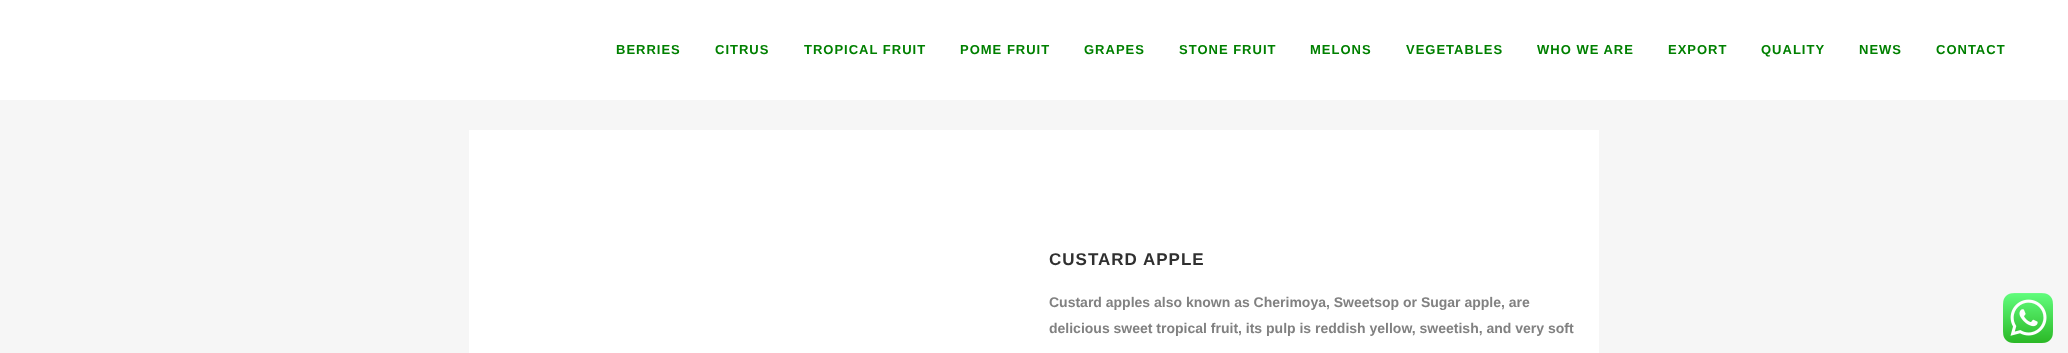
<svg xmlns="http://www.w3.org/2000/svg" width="2068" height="353">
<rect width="100%" height="100%" fill="#f6f6f6"/>
<rect width="2068" height="100" fill="#fff"/>
<text x="616" y="54" style="font-family:Liberation Sans;font-size:13px;font-weight:bold;letter-spacing:1px;fill:#008000">BERRIES</text>
<text x="715" y="54" style="font-family:Liberation Sans;font-size:13px;font-weight:bold;letter-spacing:1px;fill:#008000">CITRUS</text>
<text x="804" y="54" style="font-family:Liberation Sans;font-size:13px;font-weight:bold;letter-spacing:1px;fill:#008000">TROPICAL FRUIT</text>
<text x="960" y="54" style="font-family:Liberation Sans;font-size:13px;font-weight:bold;letter-spacing:1px;fill:#008000">POME FRUIT</text>
<text x="1084" y="54" style="font-family:Liberation Sans;font-size:13px;font-weight:bold;letter-spacing:1px;fill:#008000">GRAPES</text>
<text x="1179" y="54" style="font-family:Liberation Sans;font-size:13px;font-weight:bold;letter-spacing:1px;fill:#008000">STONE FRUIT</text>
<text x="1310" y="54" style="font-family:Liberation Sans;font-size:13px;font-weight:bold;letter-spacing:1px;fill:#008000">MELONS</text>
<text x="1406" y="54" style="font-family:Liberation Sans;font-size:13px;font-weight:bold;letter-spacing:1px;fill:#008000">VEGETABLES</text>
<text x="1537" y="54" style="font-family:Liberation Sans;font-size:13px;font-weight:bold;letter-spacing:1px;fill:#008000">WHO WE ARE</text>
<text x="1668" y="54" style="font-family:Liberation Sans;font-size:13px;font-weight:bold;letter-spacing:1px;fill:#008000">EXPORT</text>
<text x="1761" y="54" style="font-family:Liberation Sans;font-size:13px;font-weight:bold;letter-spacing:1px;fill:#008000">QUALITY</text>
<text x="1859" y="54" style="font-family:Liberation Sans;font-size:13px;font-weight:bold;letter-spacing:1px;fill:#008000">NEWS</text>
<text x="1936" y="54" style="font-family:Liberation Sans;font-size:13px;font-weight:bold;letter-spacing:1px;fill:#008000">CONTACT</text>
<rect x="469" y="130" width="1130" height="223" fill="#fff"/>
<text x="1049" y="265" style="font-family:Liberation Sans;font-size:17px;font-weight:bold;letter-spacing:1px;fill:#303030">CUSTARD APPLE</text>
<text x="1049" y="307" style="font-family:Liberation Sans;font-size:14px;font-weight:bold;fill:#818181">Custard apples also known as Cherimoya, Sweetsop or Sugar apple, are</text>
<text x="1049" y="333" style="font-family:Liberation Sans;font-size:14px;font-weight:bold;fill:#818181">delicious sweet tropical fruit, its pulp is reddish yellow, sweetish, and very soft</text>
<image x="2003" y="293" width="50" height="50" href="media/1.png"/>
</svg>
